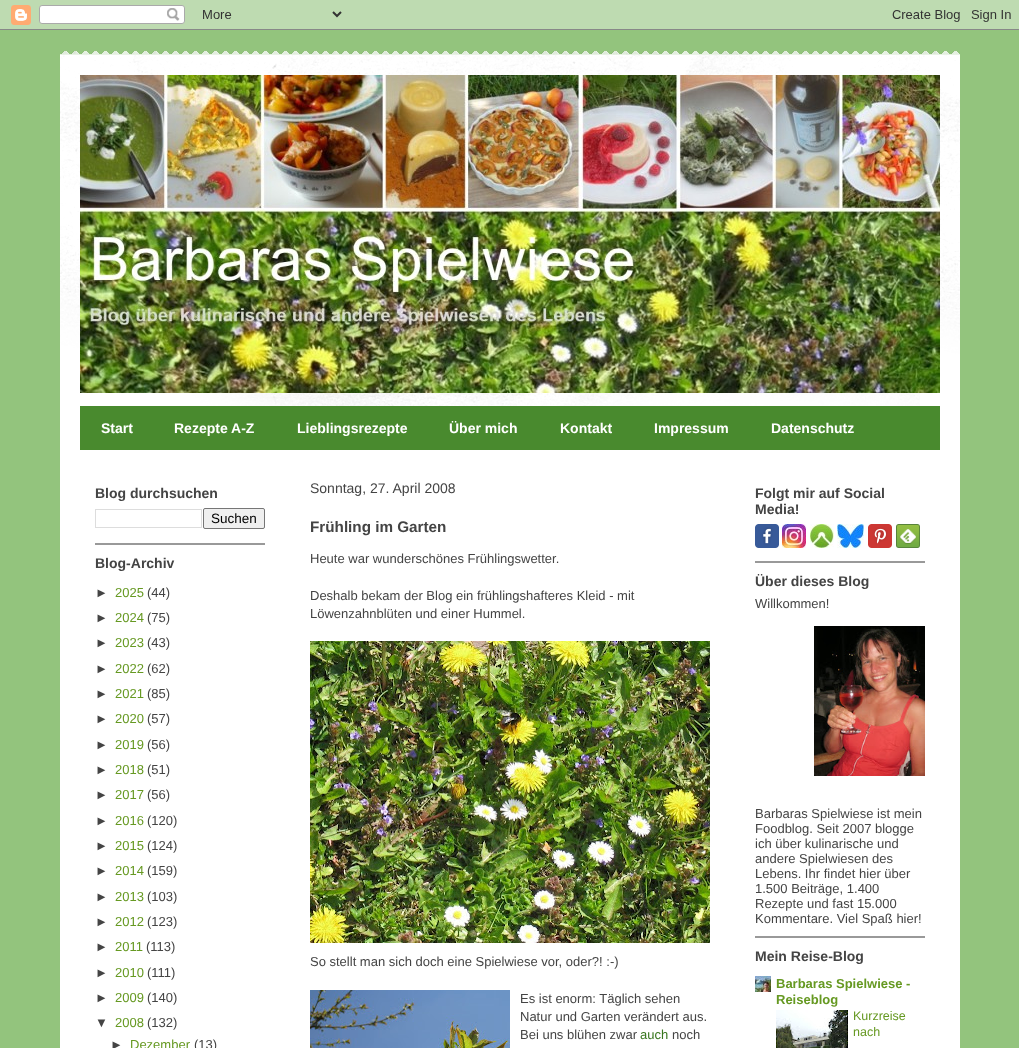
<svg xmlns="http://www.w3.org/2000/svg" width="1019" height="1048">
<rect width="100%" height="100%" fill="#93c47d"/>
<image x="0" y="0" width="1019" height="30" href="media/1.png"/>
<image x="60" y="51" width="900" height="4" href="media/2.png"/>
<rect x="60" y="55" width="900" height="993" fill="#fff"/>
<image x="60" y="55" width="900" height="351" href="media/3.png"/>
<image x="80" y="75" width="860" height="318" href="media/4.png"/>
<rect x="80" y="406" width="860" height="44" fill="#498a2e"/>
<text x="101" y="433" style="font-family:Liberation Sans;font-size:14px;font-weight:bold;fill:#fff">Start</text>
<text x="174" y="433" style="font-family:Liberation Sans;font-size:14px;font-weight:bold;fill:#fff">Rezepte A-Z</text>
<text x="297" y="433" style="font-family:Liberation Sans;font-size:14px;font-weight:bold;fill:#fff">Lieblingsrezepte</text>
<text x="449" y="433" style="font-family:Liberation Sans;font-size:14px;font-weight:bold;fill:#fff">Über mich</text>
<text x="560" y="433" style="font-family:Liberation Sans;font-size:14px;font-weight:bold;fill:#fff">Kontakt</text>
<text x="654" y="433" style="font-family:Liberation Sans;font-size:14px;font-weight:bold;fill:#fff">Impressum</text>
<text x="771" y="433" style="font-family:Liberation Sans;font-size:14px;font-weight:bold;fill:#fff">Datenschutz</text>
<rect x="95" y="543" width="170" height="2" fill="#999"/>
<text x="95" y="498" style="font-family:Liberation Sans;font-size:14px;font-weight:bold;fill:#444">Blog durchsuchen</text>
<rect x="95.5" y="509.5" width="106" height="18" fill="none" stroke="#ddd"/>
<rect x="203.5" y="508.5" width="61" height="20" rx="1.5" fill="#efefef" stroke="#767676"/>
<text x="211" y="523" style="font-family:Liberation Sans;font-size:13.5px;fill:#000">Suchen</text>
<text x="95" y="568" style="font-family:Liberation Sans;font-size:14px;font-weight:bold;fill:#444">Blog-Archiv</text>
<text x="95" y="597" style="font-family:Liberation Sans;font-size:13px;fill:#444">►</text>
<text x="115" y="597" style="font-family:Liberation Sans;font-size:13px;fill:#692">2025</text>
<text x="147" y="597" style="font-family:Liberation Sans;font-size:13px;fill:#444">(44)</text>
<text x="95" y="622" style="font-family:Liberation Sans;font-size:13px;fill:#444">►</text>
<text x="115" y="622" style="font-family:Liberation Sans;font-size:13px;fill:#692">2024</text>
<text x="147" y="622" style="font-family:Liberation Sans;font-size:13px;fill:#444">(75)</text>
<text x="95" y="647" style="font-family:Liberation Sans;font-size:13px;fill:#444">►</text>
<text x="115" y="647" style="font-family:Liberation Sans;font-size:13px;fill:#692">2023</text>
<text x="147" y="647" style="font-family:Liberation Sans;font-size:13px;fill:#444">(43)</text>
<text x="95" y="673" style="font-family:Liberation Sans;font-size:13px;fill:#444">►</text>
<text x="115" y="673" style="font-family:Liberation Sans;font-size:13px;fill:#692">2022</text>
<text x="147" y="673" style="font-family:Liberation Sans;font-size:13px;fill:#444">(62)</text>
<text x="95" y="698" style="font-family:Liberation Sans;font-size:13px;fill:#444">►</text>
<text x="115" y="698" style="font-family:Liberation Sans;font-size:13px;fill:#692">2021</text>
<text x="147" y="698" style="font-family:Liberation Sans;font-size:13px;fill:#444">(85)</text>
<text x="95" y="723" style="font-family:Liberation Sans;font-size:13px;fill:#444">►</text>
<text x="115" y="723" style="font-family:Liberation Sans;font-size:13px;fill:#692">2020</text>
<text x="147" y="723" style="font-family:Liberation Sans;font-size:13px;fill:#444">(57)</text>
<text x="95" y="749" style="font-family:Liberation Sans;font-size:13px;fill:#444">►</text>
<text x="115" y="749" style="font-family:Liberation Sans;font-size:13px;fill:#692">2019</text>
<text x="147" y="749" style="font-family:Liberation Sans;font-size:13px;fill:#444">(56)</text>
<text x="95" y="774" style="font-family:Liberation Sans;font-size:13px;fill:#444">►</text>
<text x="115" y="774" style="font-family:Liberation Sans;font-size:13px;fill:#692">2018</text>
<text x="147" y="774" style="font-family:Liberation Sans;font-size:13px;fill:#444">(51)</text>
<text x="95" y="799" style="font-family:Liberation Sans;font-size:13px;fill:#444">►</text>
<text x="115" y="799" style="font-family:Liberation Sans;font-size:13px;fill:#692">2017</text>
<text x="147" y="799" style="font-family:Liberation Sans;font-size:13px;fill:#444">(56)</text>
<text x="95" y="825" style="font-family:Liberation Sans;font-size:13px;fill:#444">►</text>
<text x="115" y="825" style="font-family:Liberation Sans;font-size:13px;fill:#692">2016</text>
<text x="147" y="825" style="font-family:Liberation Sans;font-size:13px;fill:#444">(120)</text>
<text x="95" y="850" style="font-family:Liberation Sans;font-size:13px;fill:#444">►</text>
<text x="115" y="850" style="font-family:Liberation Sans;font-size:13px;fill:#692">2015</text>
<text x="147" y="850" style="font-family:Liberation Sans;font-size:13px;fill:#444">(124)</text>
<text x="95" y="875" style="font-family:Liberation Sans;font-size:13px;fill:#444">►</text>
<text x="115" y="875" style="font-family:Liberation Sans;font-size:13px;fill:#692">2014</text>
<text x="147" y="875" style="font-family:Liberation Sans;font-size:13px;fill:#444">(159)</text>
<text x="95" y="901" style="font-family:Liberation Sans;font-size:13px;fill:#444">►</text>
<text x="115" y="901" style="font-family:Liberation Sans;font-size:13px;fill:#692">2013</text>
<text x="147" y="901" style="font-family:Liberation Sans;font-size:13px;fill:#444">(103)</text>
<text x="95" y="926" style="font-family:Liberation Sans;font-size:13px;fill:#444">►</text>
<text x="115" y="926" style="font-family:Liberation Sans;font-size:13px;fill:#692">2012</text>
<text x="147" y="926" style="font-family:Liberation Sans;font-size:13px;fill:#444">(123)</text>
<text x="95" y="951" style="font-family:Liberation Sans;font-size:13px;fill:#444">►</text>
<text x="115" y="951" style="font-family:Liberation Sans;font-size:13px;fill:#692">2011</text>
<text x="146" y="951" style="font-family:Liberation Sans;font-size:13px;fill:#444">(113)</text>
<text x="95" y="977" style="font-family:Liberation Sans;font-size:13px;fill:#444">►</text>
<text x="115" y="977" style="font-family:Liberation Sans;font-size:13px;fill:#692">2010</text>
<text x="147" y="977" style="font-family:Liberation Sans;font-size:13px;fill:#444">(111)</text>
<text x="95" y="1002" style="font-family:Liberation Sans;font-size:13px;fill:#444">►</text>
<text x="115" y="1002" style="font-family:Liberation Sans;font-size:13px;fill:#692">2009</text>
<text x="147" y="1002" style="font-family:Liberation Sans;font-size:13px;fill:#444">(140)</text>
<text x="95" y="1027" style="font-family:Liberation Sans;font-size:13px;fill:#444">▼</text>
<text x="115" y="1027" style="font-family:Liberation Sans;font-size:13px;fill:#692">2008</text>
<text x="147" y="1027" style="font-family:Liberation Sans;font-size:13px;fill:#444">(132)</text>
<text x="110" y="1049" style="font-family:Liberation Sans;font-size:13px;fill:#444">►</text>
<text x="130" y="1049" style="font-family:Liberation Sans;font-size:13px;fill:#692">Dezember</text>
<text x="194" y="1049" style="font-family:Liberation Sans;font-size:13px;fill:#444">(13)</text>
<text x="310" y="493" style="font-family:Liberation Sans;font-size:14px;fill:#444">Sonntag, 27. April 2008</text>
<text x="310" y="532" style="font-family:Liberation Sans;font-size:15.25px;font-weight:bold;fill:#444">Frühling im Garten</text>
<text x="310" y="563" style="font-family:Liberation Sans;font-size:13px;fill:#444">Heute war wunderschönes Frühlingswetter.</text>
<text x="310" y="600" style="font-family:Liberation Sans;font-size:13px;fill:#444">Deshalb bekam der Blog ein frühlingshafteres Kleid - mit</text>
<text x="310" y="618" style="font-family:Liberation Sans;font-size:13px;fill:#444">Löwenzahnblüten und einer Hummel.</text>
<image x="310" y="641" width="400" height="302" href="media/5.png"/>
<text x="310" y="966" style="font-family:Liberation Sans;font-size:13px;fill:#444">So stellt man sich doch eine Spielwiese vor, oder?! :-)</text>
<image x="310" y="990" width="200" height="58" href="media/6.png"/>
<text x="520" y="1003" style="font-family:Liberation Sans;font-size:13px;fill:#444">Es ist enorm: Täglich sehen</text>
<text x="520" y="1021" style="font-family:Liberation Sans;font-size:13px;fill:#444">Natur und Garten verändert aus.</text>
<text x="520" y="1039" style="font-family:Liberation Sans;font-size:13px;fill:#444">Bei uns blühen zwar</text>
<text x="640" y="1039" style="font-family:Liberation Sans;font-size:13px;fill:#38761d">auch</text>
<text x="672" y="1039" style="font-family:Liberation Sans;font-size:13px;fill:#444">noch</text>
<rect x="755" y="561" width="170" height="2" fill="#999"/>
<text x="755" y="498" style="font-family:Liberation Sans;font-size:14px;font-weight:bold;fill:#444">Folgt mir auf Social</text>
<text x="755" y="514" style="font-family:Liberation Sans;font-size:14px;font-weight:bold;fill:#444">Media!</text>
<image x="755" y="524" width="24" height="24" href="media/7.png"/>
<image x="782" y="524" width="24" height="24" href="media/8.png"/>
<image x="810" y="524" width="24" height="24" href="media/9.png"/>
<image x="837" y="524" width="27" height="24" href="media/10.png"/>
<image x="868" y="524" width="24" height="24" href="media/11.png"/>
<image x="896" y="524" width="24" height="24" href="media/12.png"/>
<rect x="755" y="936" width="170" height="2" fill="#999"/>
<text x="755" y="586" style="font-family:Liberation Sans;font-size:14px;font-weight:bold;fill:#444">Über dieses Blog</text>
<text x="755" y="608" style="font-family:Liberation Sans;font-size:13px;fill:#444">Willkommen!</text>
<image x="814" y="626" width="111" height="150" href="media/13.png"/>
<text x="755" y="818" style="font-family:Liberation Sans;font-size:13px;fill:#444">Barbaras Spielwiese ist mein</text>
<text x="755" y="833" style="font-family:Liberation Sans;font-size:13px;fill:#444">Foodblog. Seit 2007 blogge</text>
<text x="755" y="848" style="font-family:Liberation Sans;font-size:13px;fill:#444">ich über kulinarische und</text>
<text x="755" y="863" style="font-family:Liberation Sans;font-size:13px;fill:#444">andere Spielwiesen des</text>
<text x="755" y="878" style="font-family:Liberation Sans;font-size:13px;fill:#444">Lebens. Ihr findet hier über</text>
<text x="755" y="893" style="font-family:Liberation Sans;font-size:13px;fill:#444">1.500 Beiträge, 1.400</text>
<text x="755" y="908" style="font-family:Liberation Sans;font-size:13px;fill:#444">Rezepte und fast 15.000</text>
<text x="755" y="923" style="font-family:Liberation Sans;font-size:13px;fill:#444">Kommentare. Viel Spaß hier!</text>
<text x="755" y="961" style="font-family:Liberation Sans;font-size:14px;font-weight:bold;fill:#444">Mein Reise-Blog</text>
<image x="755" y="976" width="16" height="16" href="media/14.png"/>
<text x="776" y="988" style="font-family:Liberation Sans;font-size:13px;font-weight:bold;fill:#692">Barbaras Spielwiese -</text>
<text x="776" y="1004" style="font-family:Liberation Sans;font-size:13px;font-weight:bold;fill:#692">Reiseblog</text>
<image x="776" y="1010" width="72" height="38" href="media/15.png"/>
<text x="853" y="1020" style="font-family:Liberation Sans;font-size:12.5px;fill:#692">Kurzreise</text>
<text x="853" y="1036" style="font-family:Liberation Sans;font-size:12.5px;fill:#692">nach</text>
</svg>
